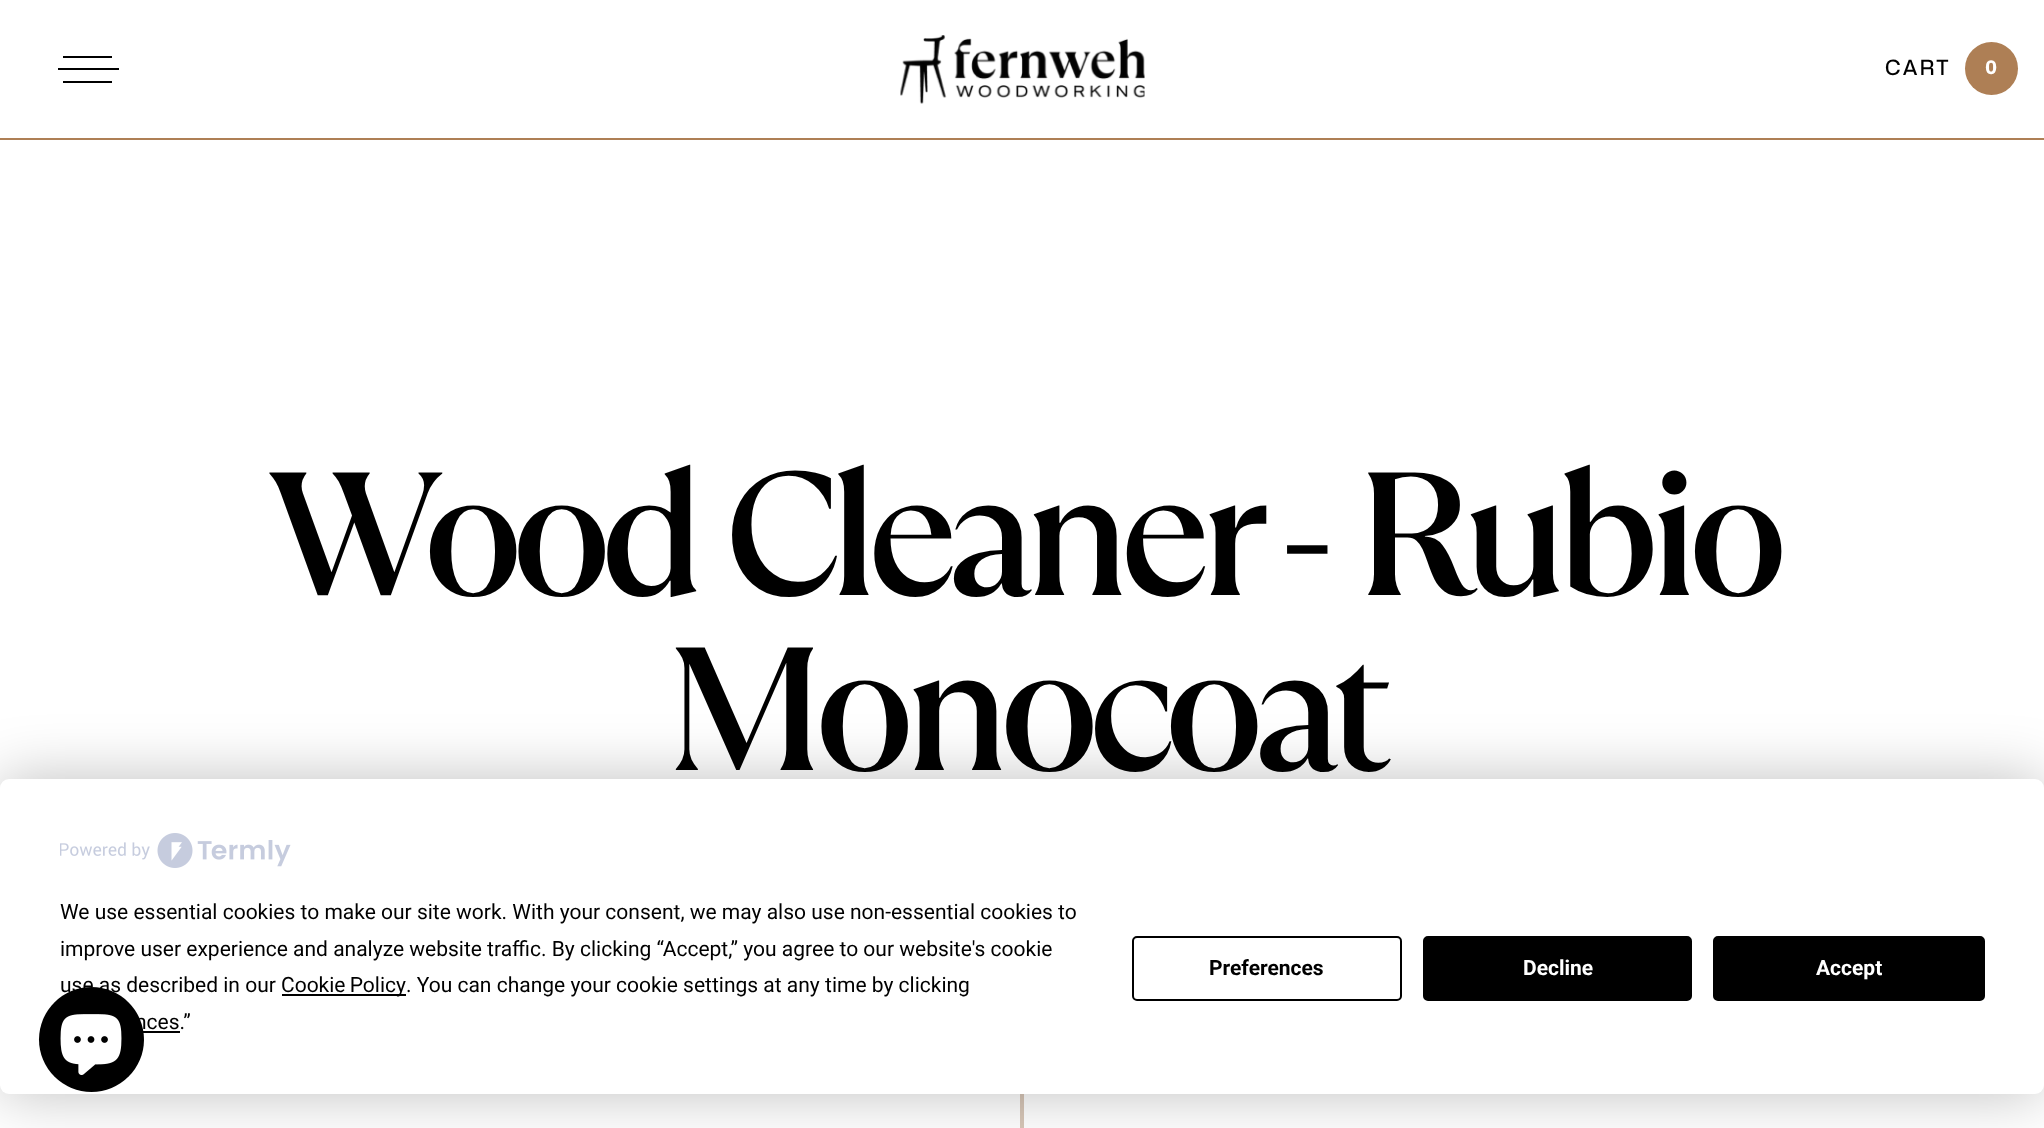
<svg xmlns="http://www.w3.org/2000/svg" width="2044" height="1128">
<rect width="100%" height="100%" fill="#fff"/>
<rect y="138" width="2044" height="2" fill="#ae7f55"/>
<rect x="63" y="56" width="49" height="2" fill="#000"/>
<rect x="58" y="68" width="61" height="2" fill="#000"/>
<rect x="63" y="81" width="49" height="2" fill="#000"/>
<image x="900" y="35" width="245" height="69" href="media/1.png"/>
<text x="1885" y="75" style="font-family:'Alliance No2';font-size:21px;font-weight:500;letter-spacing:2.5px;fill:#000">CART</text>
<circle cx="1991.5" cy="68.5" r="26.5" fill="#ae7f55"/>
<text x="1985" y="74" style="font-family:'Alliance No2';font-size:19px;font-weight:bold;fill:#fff">0</text>
<text x="268" y="595" style="font-family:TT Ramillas;font-size:175px;font-weight:500;letter-spacing:-12.25px;fill:#000">Wood Cleaner - Rubio</text>
<text x="665" y="770" style="font-family:TT Ramillas;font-size:175px;font-weight:500;letter-spacing:-12.25px;fill:#000">Monocoat</text>
<rect x="1020" y="1094" width="4" height="34" fill="#d8c7b8"/>
<rect y="779" width="2044" height="315" rx="9" fill="#00000040" filter="blur(30.5px)"/>
<rect y="779" width="2044" height="315" rx="9" fill="#fff"/>
<image x="60" y="833" width="231" height="35" href="media/2.png"/>
<text x="60" y="919" style="font-family:Roboto;font-size:21px;fill:#000">We use essential cookies to make our site work. With your consent, we may also use non-essential cookies to</text>
<text x="60" y="956" style="font-family:Roboto;font-size:21px;fill:#000">improve user experience and analyze website traffic. By clicking “Accept,” you agree to our website's cookie</text>
<text x="60" y="992" style="font-family:Roboto;font-size:21px;fill:#000">use as described in our</text>
<rect x="282" y="994" width="124" height="2" fill="#000"/>
<text x="281" y="992" word-spacing="-1" style="font-family:Roboto;font-size:21px;fill:#000">Cookie Policy</text>
<text x="406" y="992" style="font-family:Roboto;font-size:21px;fill:#000">. You can change your cookie settings at any time by clicking</text>
<text x="135" y="1029" style="font-family:Roboto;font-size:21px;fill:#000">nces.”</text>
<rect x="143" y="1031" width="37" height="2" fill="#000"/>
<rect x="1133" y="937" width="268" height="63" rx="4" fill="none" stroke="#000" stroke-width="2"/>
<text x="1209" y="975" style="font-family:Roboto;font-size:21px;font-weight:bold;fill:#000">Preferences</text>
<rect x="1424" y="937" width="267" height="63" rx="4" fill="#000" stroke="#000" stroke-width="2"/>
<text x="1523" y="975" style="font-family:Roboto;font-size:21px;font-weight:bold;fill:#fff">Decline</text>
<rect x="1714" y="937" width="270" height="63" rx="4" fill="#000" stroke="#000" stroke-width="2"/>
<text x="1816" y="975" style="font-family:Roboto;font-size:21px;font-weight:bold;fill:#fff">Accept</text>
<circle cx="91.5" cy="1039.5" r="52.5" fill="#000"/>
<image x="60" y="1014" width="62" height="61" href="media/3.png"/>
</svg>
